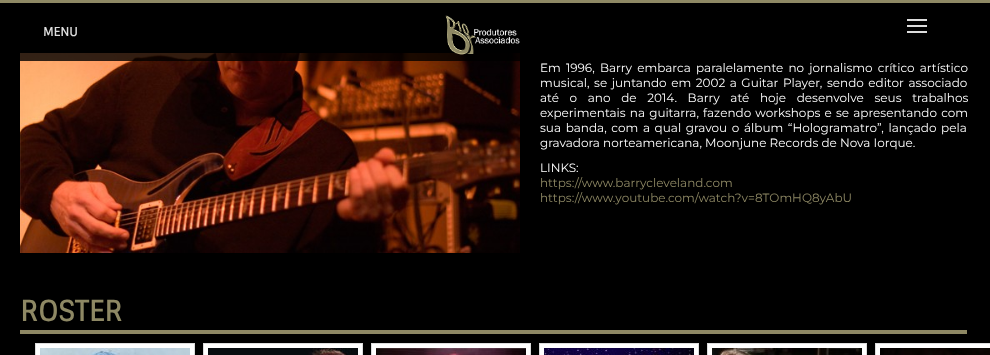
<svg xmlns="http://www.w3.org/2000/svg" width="990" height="355">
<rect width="100%" height="100%" fill="#000"/>
<rect width="990" height="3" fill="#8e8864"/>
<image x="20" y="53" width="500" height="200" href="media/2.png"/>
<rect x="20" y="53" width="500" height="8" fill="#000000cc"/>
<text x="43" y="36" style="font-family:Sintony;font-size:12px;font-weight:bold;fill:#ddd">MENU</text>
<image x="445" y="15" width="75" height="40" href="media/1.png"/>
<rect x="907" y="19" width="20" height="2" fill="#ddd"/>
<rect x="907" y="25" width="20" height="2" fill="#ddd"/>
<rect x="907" y="31" width="20" height="2" fill="#ddd"/>
<text x="540" y="72" word-spacing="2" style="font-family:Montserrat;font-size:12px;font-weight:100;fill:#fff">Em 1996, Barry embarca paralelamente no jornalismo crítico artístico</text>
<text x="540" y="87" word-spacing="1.4" style="font-family:Montserrat;font-size:12px;font-weight:100;fill:#fff">musical, se juntando em 2002 a Guitar Player, sendo editor associado</text>
<text x="540" y="102" word-spacing="7.5" style="font-family:Montserrat;font-size:12px;font-weight:100;fill:#fff">até o ano de 2014. Barry até hoje desenvolve seus trabalhos</text>
<text x="540" y="117" word-spacing="1" style="font-family:Montserrat;font-size:12px;font-weight:100;fill:#fff">experimentais na guitarra, fazendo workshops e se apresentando com</text>
<text x="540" y="132" word-spacing="1.5" style="font-family:Montserrat;font-size:12px;font-weight:100;fill:#fff">sua banda, com a qual gravou o álbum “Hologramatro”, lançado pela</text>
<text x="540" y="147" style="font-family:Montserrat;font-size:12px;font-weight:100;fill:#fff">gravadora norteamericana, Moonjune Records de Nova Iorque.</text>
<text x="540" y="172" style="font-family:Montserrat;font-size:12px;font-weight:100;fill:#fff">LINKS:</text>
<text x="540" y="187" style="font-family:Montserrat;font-size:12px;font-weight:100;fill:#8e8864">https://www.barrycleveland.com</text>
<text x="540" y="202" style="font-family:Montserrat;font-size:12px;font-weight:100;fill:#8e8864">https://www.youtube.com/watch?v=8TOmHQ8yAbU</text>
<rect x="20" y="330" width="947" height="4" fill="#8e8864"/>
<text x="20" y="321" style="font-family:Sintony;font-size:28px;font-weight:bold;fill:#8e8864">ROSTER</text>
<rect x="35.5" y="343.5" width="159" height="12" fill="none" stroke="#ddd"/>
<rect x="36" y="344" width="158" height="11" fill="#fff"/>
<image x="40" y="348" width="150" height="7" href="media/3.png"/>
<rect x="203.5" y="343.5" width="159" height="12" fill="none" stroke="#ddd"/>
<rect x="204" y="344" width="158" height="11" fill="#fff"/>
<image x="208" y="348" width="150" height="7" href="media/4.png"/>
<rect x="371.5" y="343.5" width="159" height="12" fill="none" stroke="#ddd"/>
<rect x="372" y="344" width="158" height="11" fill="#fff"/>
<image x="376" y="348" width="150" height="7" href="media/5.png"/>
<rect x="539.5" y="343.5" width="159" height="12" fill="none" stroke="#ddd"/>
<rect x="540" y="344" width="158" height="11" fill="#fff"/>
<image x="544" y="348" width="150" height="7" href="media/6.png"/>
<rect x="707.5" y="343.5" width="159" height="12" fill="none" stroke="#ddd"/>
<rect x="708" y="344" width="158" height="11" fill="#fff"/>
<image x="712" y="348" width="150" height="7" href="media/7.png"/>
<rect x="875.5" y="343.5" width="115" height="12" fill="none" stroke="#ddd"/>
<rect x="876" y="344" width="114" height="11" fill="#fff"/>
<image x="880" y="348" width="110" height="7" href="media/8.png"/>
</svg>
